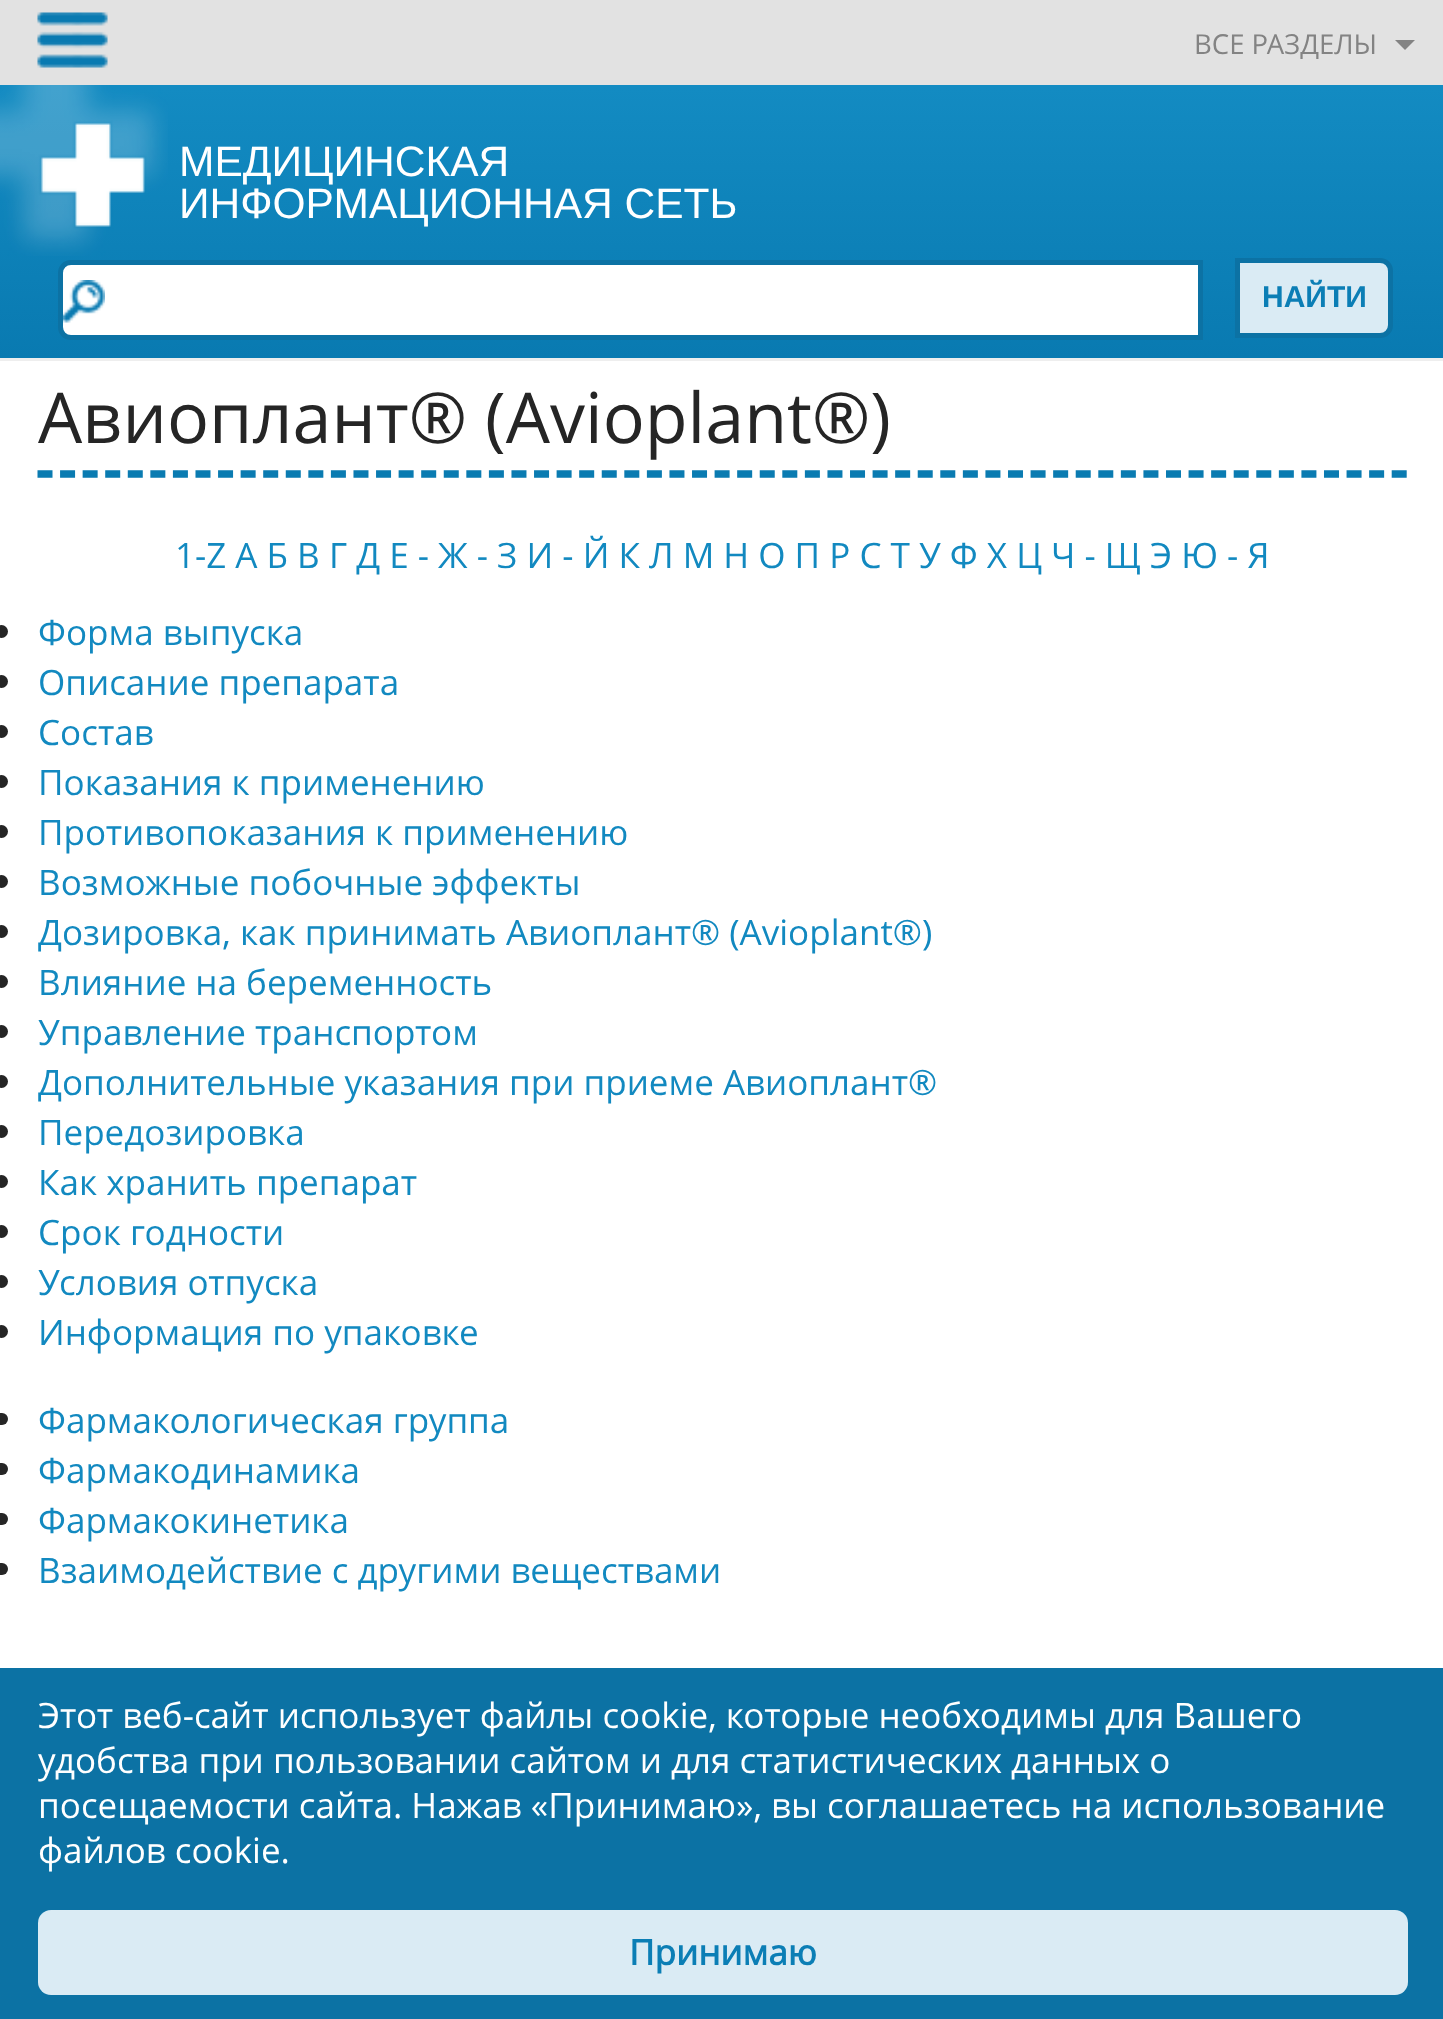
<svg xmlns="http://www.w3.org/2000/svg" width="1443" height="2019">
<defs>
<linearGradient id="g1" gradientUnits="userSpaceOnUse" x1="723" y1="85" x2="723" y2="358"><stop offset="0.01" stop-color="#138bc2"/><stop offset="1" stop-color="#097ab1"/></linearGradient>
</defs>
<rect width="100%" height="100%" fill="#fff"/>
<rect width="1443" height="85" fill="#e2e2e2"/>
<image x="37" y="12" width="71" height="56" href="media/1.png"/>
<text x="1194" y="54" style="font-family:'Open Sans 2';font-size:27.5px;fill:#838383">ВСЕ РАЗДЕЛЫ</text>
<path d="M1395 40h20l-10 10z" fill="#838383"/>
<rect y="85" width="1443" height="273" fill="url(#g1)"/>
<rect y="358" width="1443" height="3" fill="#eee"/>
<image x="0" y="85" width="168" height="171" href="media/2.png"/>
<text x="179" y="176" style="font-family:Liberation Sans;font-size:42.5px;fill:#fff">МЕДИЦИНСКАЯ</text>
<text x="179" y="218" style="font-family:Liberation Sans;font-size:42.5px;fill:#fff">ИНФОРМАЦИОННАЯ СЕТЬ</text>
<path d="M71 262.5h1129.5v75h-1129.5c-6 0-10.5-4.5-10.5-10.5v-54c0-6 4.5-10.5 10.5-10.5z" fill="#fff" stroke="#0c72a4" stroke-width="5"/>
<image x="62" y="280" width="43" height="43" href="media/3.png"/>
<path d="M1237.5 260.5h142.5c6 0 10.5 4.5 10.5 10.5v54c0 6-4.5 10.5-10.5 10.5h-142.5z" fill="#daebf4" stroke="#0c72a4" stroke-width="5"/>
<text x="1262" y="307" style="font-family:Liberation Sans;font-size:30px;font-weight:bold;fill:#0b7eb5">НАЙТИ</text>
<path d="M37.5 474h1370" fill="none" stroke="#0a7bb1" stroke-width="7.5" stroke-dasharray="15 7.57"/>
<text x="38" y="443" style="font-family:Open Sans;font-size:70px;fill:#252525">Авиоплант® (Avioplant®)</text>
<text x="175" y="568" style="font-family:'Open Sans 2';font-size:35px;fill:#1289c0">1-Z А Б В Г Д Е - Ж - З И - Й К Л М Н О П Р С Т У Ф Х Ц Ч - Щ Э Ю - Я</text>
<circle cx="1.5" cy="631.5" r="6.5" fill="#252525"/>
<text x="38" y="645" style="font-family:'Open Sans 2';font-size:35px;fill:#1289c0">Форма выпуска</text>
<circle cx="1.5" cy="681.5" r="6.5" fill="#252525"/>
<text x="38" y="695" style="font-family:'Open Sans 2';font-size:35px;fill:#1289c0">Описание препарата</text>
<circle cx="1.5" cy="731.5" r="6.5" fill="#252525"/>
<text x="38" y="745" style="font-family:'Open Sans 2';font-size:35px;fill:#1289c0">Состав</text>
<circle cx="1.5" cy="781.5" r="6.5" fill="#252525"/>
<text x="38" y="795" style="font-family:'Open Sans 2';font-size:35px;fill:#1289c0">Показания к применению</text>
<circle cx="1.5" cy="831.5" r="6.5" fill="#252525"/>
<text x="38" y="845" style="font-family:'Open Sans 2';font-size:35px;fill:#1289c0">Противопоказания к применению</text>
<circle cx="1.5" cy="881.5" r="6.5" fill="#252525"/>
<text x="38" y="895" style="font-family:'Open Sans 2';font-size:35px;fill:#1289c0">Возможные побочные эффекты</text>
<circle cx="1.5" cy="931.5" r="6.5" fill="#252525"/>
<text x="38" y="945" style="font-family:'Open Sans 2';font-size:35px;fill:#1289c0">Дозировка, как принимать Авиоплант® (Avioplant®)</text>
<circle cx="1.5" cy="981.5" r="6.5" fill="#252525"/>
<text x="38" y="995" style="font-family:'Open Sans 2';font-size:35px;fill:#1289c0">Влияние на беременность</text>
<circle cx="1.5" cy="1031.5" r="6.5" fill="#252525"/>
<text x="38" y="1045" style="font-family:'Open Sans 2';font-size:35px;fill:#1289c0">Управление транспортом</text>
<circle cx="1.5" cy="1081.5" r="6.5" fill="#252525"/>
<text x="38" y="1095" style="font-family:'Open Sans 2';font-size:35px;fill:#1289c0">Дополнительные указания при приеме Авиоплант®</text>
<circle cx="1.5" cy="1131.5" r="6.5" fill="#252525"/>
<text x="38" y="1145" style="font-family:'Open Sans 2';font-size:35px;fill:#1289c0">Передозировка</text>
<circle cx="1.5" cy="1181.5" r="6.5" fill="#252525"/>
<text x="38" y="1195" style="font-family:'Open Sans 2';font-size:35px;fill:#1289c0">Как хранить препарат</text>
<circle cx="1.5" cy="1231.5" r="6.5" fill="#252525"/>
<text x="38" y="1245" style="font-family:'Open Sans 2';font-size:35px;fill:#1289c0">Срок годности</text>
<circle cx="1.5" cy="1281.5" r="6.5" fill="#252525"/>
<text x="38" y="1295" style="font-family:'Open Sans 2';font-size:35px;fill:#1289c0">Условия отпуска</text>
<circle cx="1.5" cy="1331.5" r="6.5" fill="#252525"/>
<text x="38" y="1345" style="font-family:'Open Sans 2';font-size:35px;fill:#1289c0">Информация по упаковке</text>
<rect x="-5" y="1413" width="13" height="12" rx="6" fill="#252525"/>
<text x="38" y="1433" style="font-family:'Open Sans 2';font-size:35px;fill:#1289c0">Фармакологическая группа</text>
<rect x="-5" y="1463" width="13" height="12" rx="6" fill="#252525"/>
<text x="38" y="1483" style="font-family:'Open Sans 2';font-size:35px;fill:#1289c0">Фармакодинамика</text>
<rect x="-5" y="1513" width="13" height="12" rx="6" fill="#252525"/>
<text x="38" y="1533" style="font-family:'Open Sans 2';font-size:35px;fill:#1289c0">Фармакокинетика</text>
<rect x="-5" y="1563" width="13" height="12" rx="6" fill="#252525"/>
<text x="38" y="1583" style="font-family:'Open Sans 2';font-size:35px;fill:#1289c0">Взаимодействие с другими веществами</text>
<rect y="1668" width="1443" height="351" fill="#0c72a4"/>
<text x="38" y="1728" style="font-family:'Open Sans 2';font-size:35px;fill:#fff">Этот веб-сайт использует файлы cookie, которые необходимы для Вашего</text>
<text x="38" y="1773" style="font-family:'Open Sans 2';font-size:35px;fill:#fff">удобства при пользовании сайтом и для статистических данных о</text>
<text x="38" y="1818" style="font-family:'Open Sans 2';font-size:35px;fill:#fff">посещаемости сайта. Нажав «Принимаю», вы соглашаетесь на использование</text>
<text x="38" y="1863" style="font-family:'Open Sans 2';font-size:35px;fill:#fff">файлов cookie.</text>
<rect x="38" y="1910" width="1370" height="85" rx="13" fill="#daebf4"/>
<text x="629" y="1965" style="font-family:Open Sans;font-size:35px;font-weight:bold;fill:#0b7eb5">Принимаю</text>
</svg>
